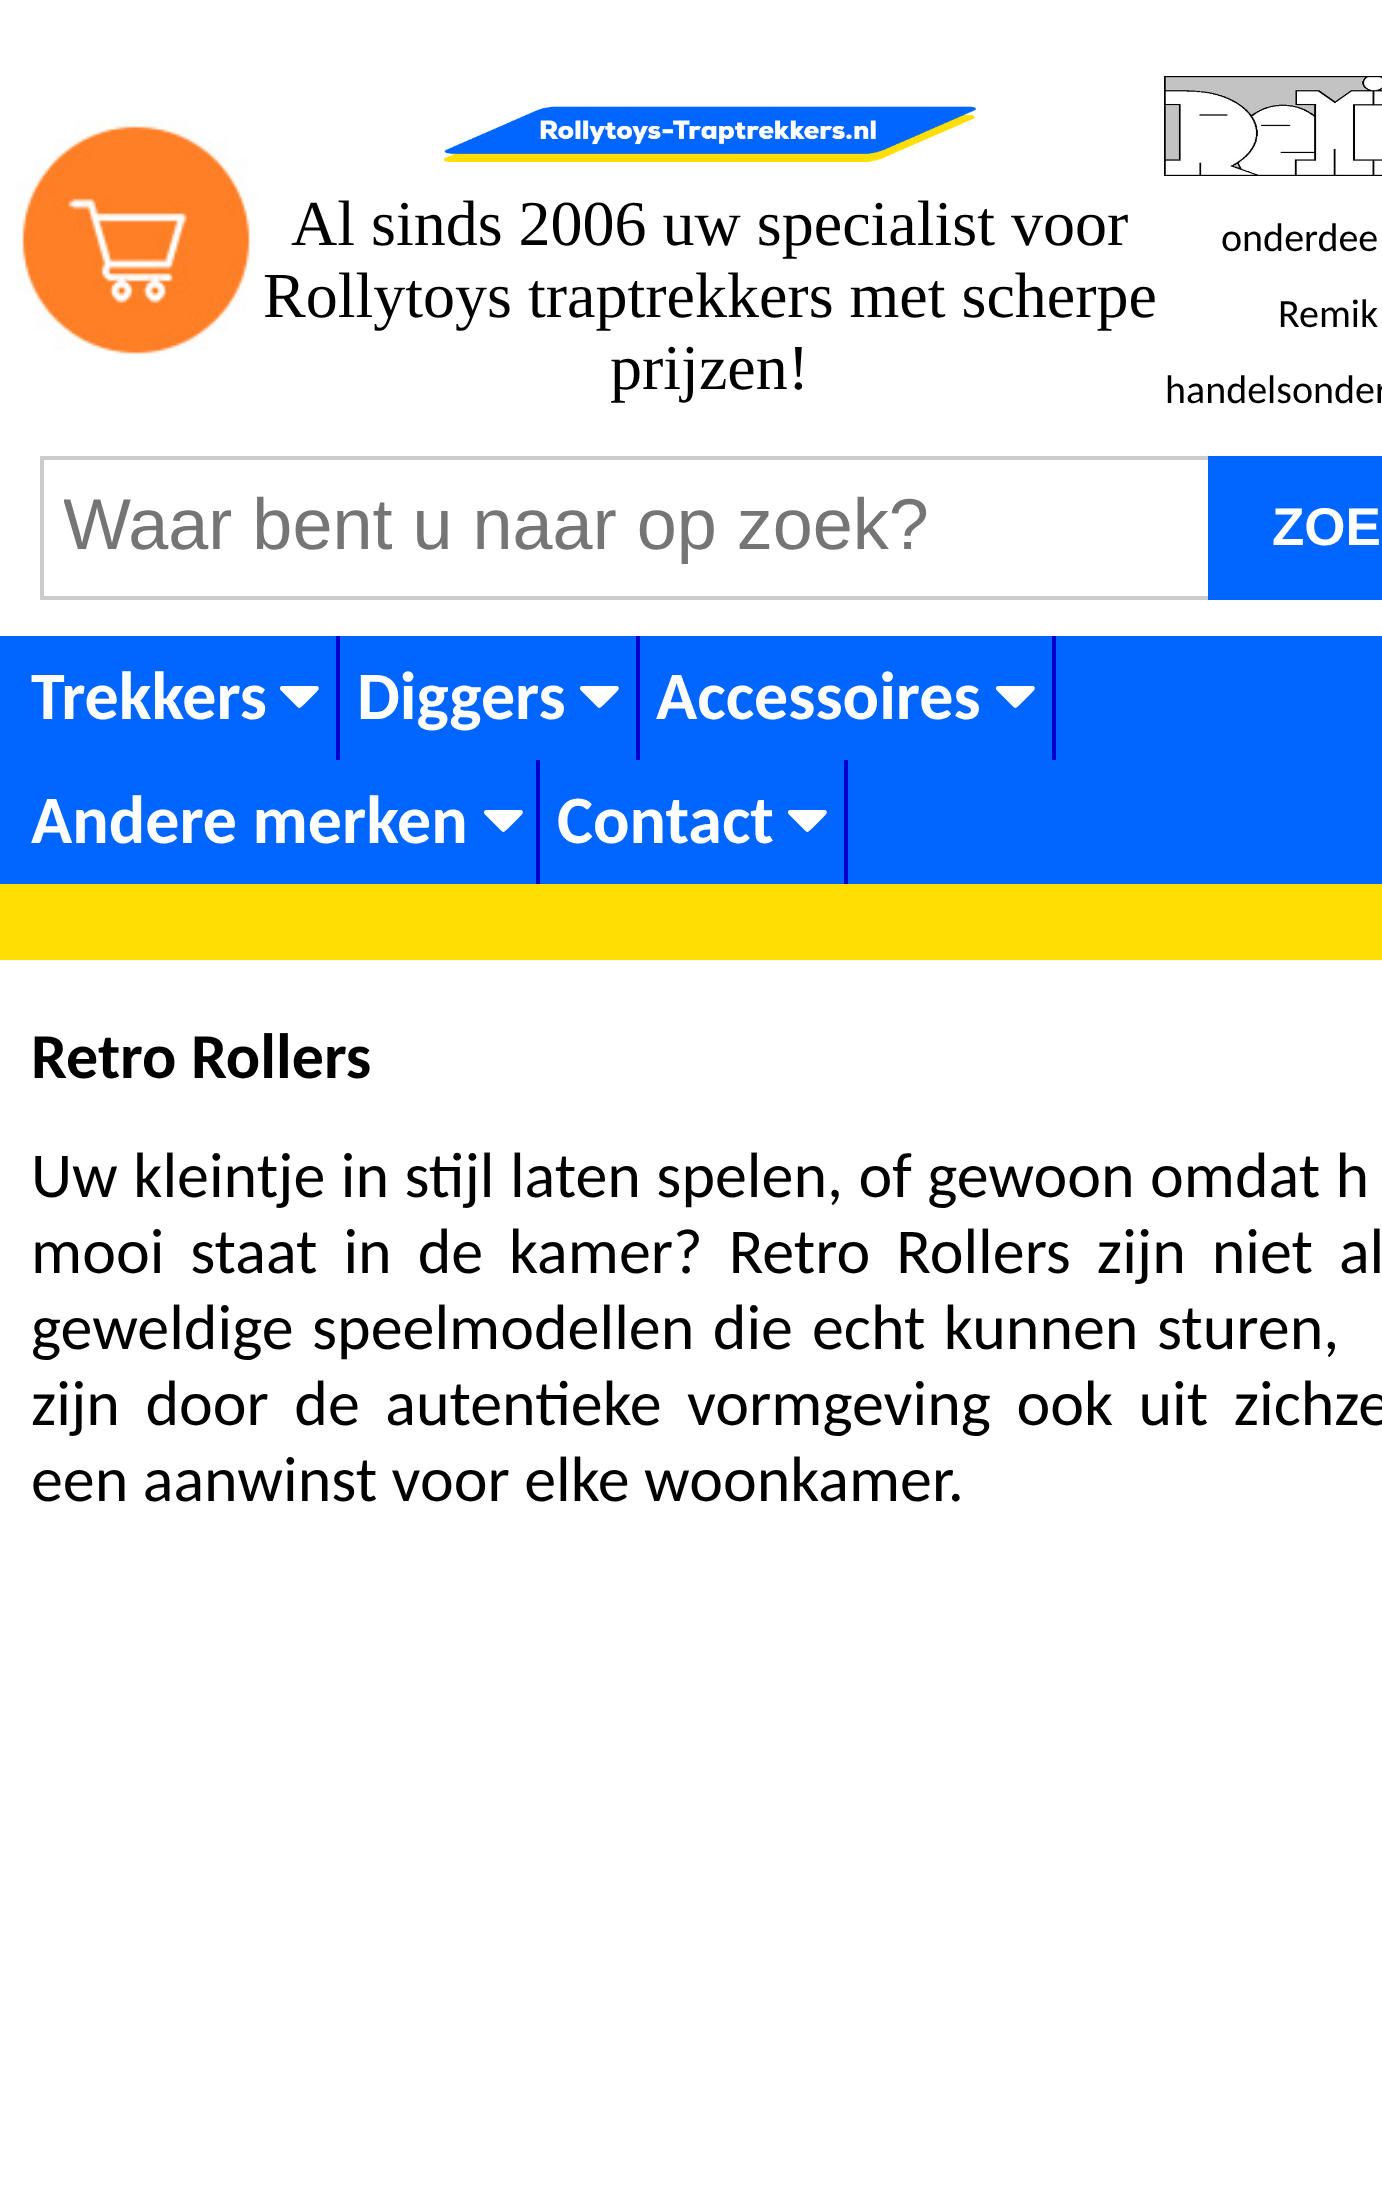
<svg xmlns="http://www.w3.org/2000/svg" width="1382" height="2208">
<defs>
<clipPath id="clip1"><rect x="64" y="484" width="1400" height="84"/></clipPath>
</defs>
<rect width="100%" height="100%" fill="#fff"/>
<image x="16" y="120" width="240" height="240" href="media/1.png"/>
<image x="443" y="106" width="534" height="56" href="media/2.png"/>
<text x="291" y="245" style="font-family:Liberation Serif;font-size:64px;fill:#000">Al sinds 2006 uw specialist voor</text>
<text x="263" y="317" style="font-family:Liberation Serif;font-size:64px;fill:#000">Rollytoys traptrekkers met scherpe</text>
<text x="610" y="389" style="font-family:Liberation Serif;font-size:64px;fill:#000">prijzen!</text>
<image x="1164" y="76" width="218" height="100" href="media/3.png"/>
<text x="1221" y="251" style="font-family:Carlito;font-size:40px;fill:#000">onderdee</text>
<text x="1278" y="327" style="font-family:Carlito;font-size:40px;fill:#000">Remik</text>
<text x="1165" y="403" style="font-family:Carlito;font-size:40px;fill:#000">handelsonder</text>
<rect x="42" y="458" width="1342" height="140" fill="none" stroke="#ccc" stroke-width="4"/>
<g clip-path="url(#clip1)">
<text x="63" y="549" style="font-family:Liberation Sans;font-size:72px;fill:#757575">Waar bent u naar op zoek?</text>
</g>
<rect x="1208" y="456" width="174" height="144" fill="#06f"/>
<text x="1272" y="545" style="font-family:Liberation Sans;font-size:53px;font-weight:bold;fill:#fff">ZOE</text>
<rect y="636" width="1382" height="248" fill="#06f"/>
<rect x="336" y="636" width="4" height="124" fill="#00c"/>
<text x="31" y="719" style="font-family:Carlito;font-size:68px;font-weight:bold;fill:#fff">Trekkers</text>
<path d="M318 686.5c2.5 2.5-1.5 5-2.5 6.5l-11.5 11.5c-5 4.5-4.5 4.5-9 0l-14.5-14.5c-1-1.5-.5-4 1.5-4h35z" fill="#fff"/>
<rect x="636" y="636" width="4" height="124" fill="#00c"/>
<text x="357" y="719" style="font-family:Carlito;font-size:68px;font-weight:bold;fill:#fff">Diggers</text>
<path d="M618 686.5c2.5 2.5-1.5 5-2.5 6.5l-11.5 11.5c-5 4.5-4.5 4.5-9 0l-14.5-14.5c-1-1.5-.5-4 1.5-4h35z" fill="#fff"/>
<rect x="1052" y="636" width="4" height="124" fill="#00c"/>
<text x="656" y="719" style="font-family:Carlito;font-size:68px;font-weight:bold;fill:#fff">Accessoires</text>
<path d="M1034 686.5c2.5 2.5-1.5 5-2.5 6.5l-11.5 11.5c-5 4.5-4.5 4.5-9 0l-14.5-14.5c-1-1.5-.5-4 1.5-4h35z" fill="#fff"/>
<rect x="536" y="760" width="4" height="124" fill="#00c"/>
<text x="31" y="843" style="font-family:Carlito;font-size:68px;font-weight:bold;fill:#fff">Andere merken</text>
<path d="M522 810.5c2.5 2.5-1.5 5-2.5 6.5l-11.5 11.5c-5 4.5-4.5 4.5-9 0l-14.5-14.5c-1-1.5-.5-4 1.5-4h35z" fill="#fff"/>
<rect x="844" y="760" width="4" height="124" fill="#00c"/>
<text x="557" y="843" style="font-family:Carlito;font-size:68px;font-weight:bold;fill:#fff">Contact</text>
<path d="M826 810.5c2.5 2.5-1.5 5-2.5 6.5l-11.5 11.5c-5 4.5-4.5 4.5-9 0l-14.5-14.5c-1-1.5-.5-4 1.5-4h35z" fill="#fff"/>
<rect y="884" width="1382" height="76" fill="#ffde03"/>
<text x="31" y="1078" style="font-family:Carlito;font-size:64px;font-weight:bold;fill:#000">Retro Rollers</text>
<text x="31" y="1197" word-spacing="1" style="font-family:Carlito;font-size:64px;fill:#000">Uw kleintje in stijl laten spelen, of gewoon omdat h</text>
<text x="31" y="1273" word-spacing="11.5" style="font-family:Carlito;font-size:64px;fill:#000">mooi staat in de kamer? Retro Rollers zijn niet al</text>
<text x="31" y="1349" word-spacing="4" style="font-family:Carlito;font-size:64px;fill:#000">geweldige speelmodellen die</text>
<text x="812" y="1349" word-spacing="4" style="font-family:Carlito;font-size:64px;fill:#000">echt kunnen sturen,</text>
<text x="31" y="1425" word-spacing="11" style="font-family:Carlito;font-size:64px;fill:#000">zijn door de autentieke vormgeving ook uit zichze</text>
<text x="31" y="1501" style="font-family:Carlito;font-size:64px;fill:#000">een aanwinst voor elke woonkamer.</text>
</svg>
